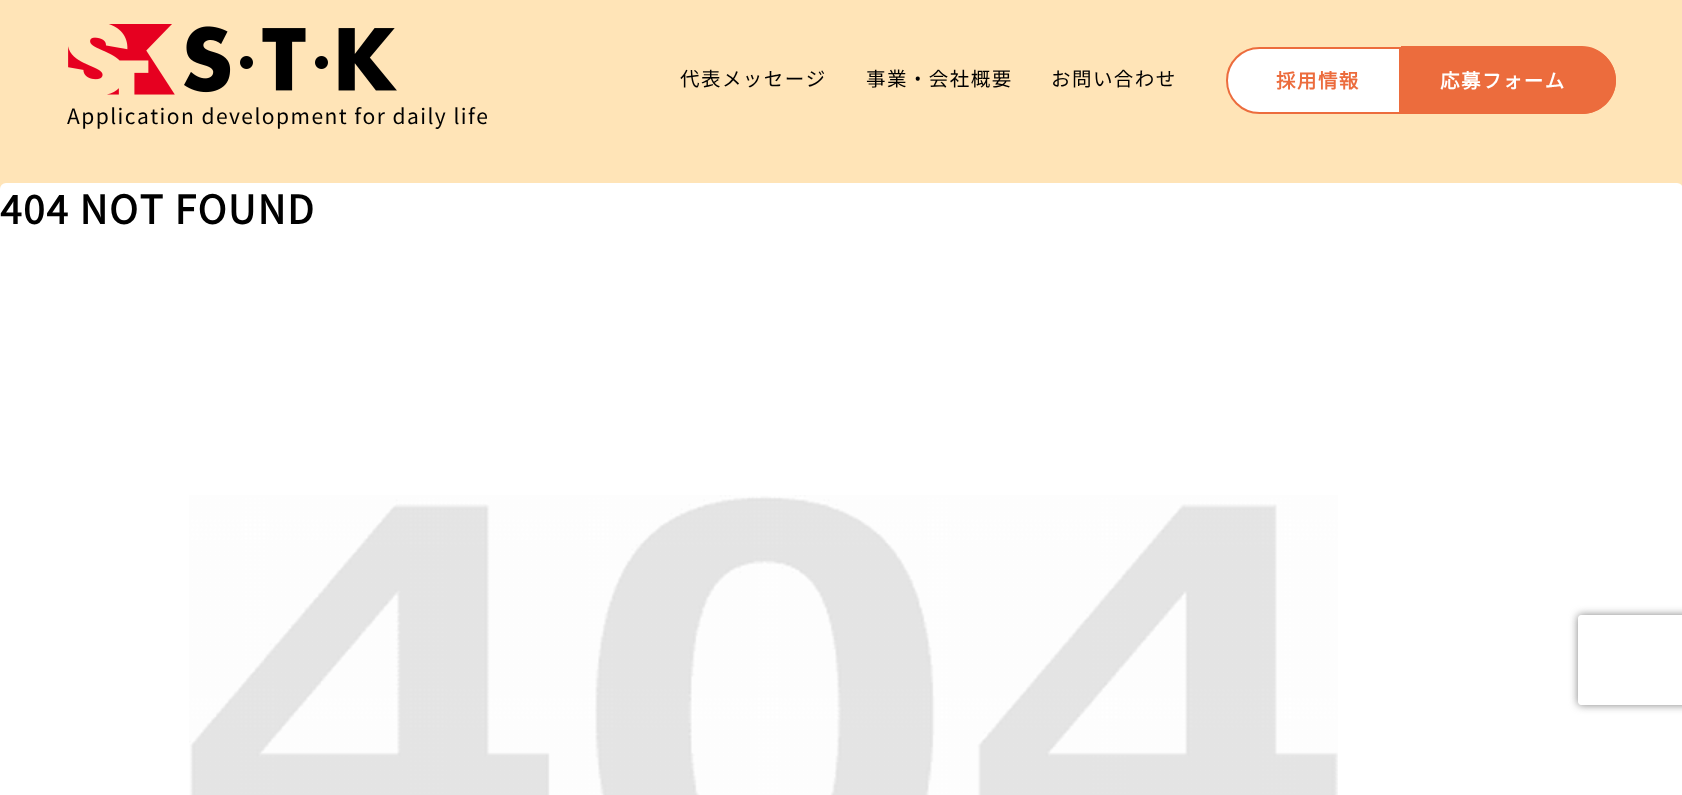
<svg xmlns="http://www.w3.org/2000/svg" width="1682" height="795">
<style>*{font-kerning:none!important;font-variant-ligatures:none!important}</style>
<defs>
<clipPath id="clip1"><path d="M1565 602h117v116h-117zm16 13h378c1.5 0 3 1.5 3 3v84c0 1.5-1.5 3-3 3h-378c-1.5 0-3-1.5-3-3v-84c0-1.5 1.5-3 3-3z" clip-rule="evenodd"/></clipPath>
</defs>
<rect width="100%" height="100%" fill="#ffe4b7"/>
<text x="680" y="86" style="font-family:Noto Sans JP;font-size:19.5px;font-weight:100;letter-spacing:1.45px;fill:#000">代表メッセージ</text>
<text x="866" y="86" style="font-family:Noto Sans JP;font-size:19.5px;font-weight:100;letter-spacing:1.45px;fill:#000">事業・会社概要</text>
<text x="1051" y="86" style="font-family:Noto Sans JP;font-size:19.5px;font-weight:100;letter-spacing:1.45px;fill:#000">お問い合わせ</text>
<path d="M1259.5 48h140.5v65h-140.5c-18 0-32.5-14.5-32.5-32.5c0-18 14.5-32.5 32.5-32.5z" fill="#fff" stroke="#ec6c3d" stroke-width="2"/>
<text x="1276" y="88" style="font-family:Noto Sans JP;font-size:19.5px;font-weight:bold;letter-spacing:1.45px;fill:#ec6c3d">採用情報</text>
<path d="M1401 47h181.5c18.5 0 33.5 15 33.5 33.5c0 18.5-15 33.5-33.5 33.5h-181.5z" fill="#ec6c3d"/>
<path d="M1401 46h181c18 0 34 16 34 34c0 19-16 34-34 34h-181zm0 2h181c18 0 32 14 32 32c0 18-14 32-32 32h-181z" fill="#ec6c3d" fill-rule="evenodd"/>
<text x="1440" y="88" style="font-family:Noto Sans JP;font-size:19.5px;font-weight:bold;letter-spacing:1.45px;fill:#fff">応募フォーム</text>
<image x="68" y="24" width="329" height="71" href="media/1.png"/>
<text x="67" y="124" style="font-family:Noto Sans JP;font-size:21px;font-weight:100;letter-spacing:1.45px;fill:#000">Application development for daily life</text>
<rect y="183" width="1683" height="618" rx="6" fill="#fff"/>
<text x="0" y="224" style="font-family:Noto Sans JP;font-size:39px;font-weight:bold;letter-spacing:1.45px;fill:#000">404 NOT FOUND</text>
<image x="189" y="495" width="1149" height="300" href="media/2.png"/>
<g clip-path="url(#clip1)">
<rect x="1578" y="615" width="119" height="90" rx="3" fill="#808080" filter="blur(4px)"/>
</g>
</svg>
